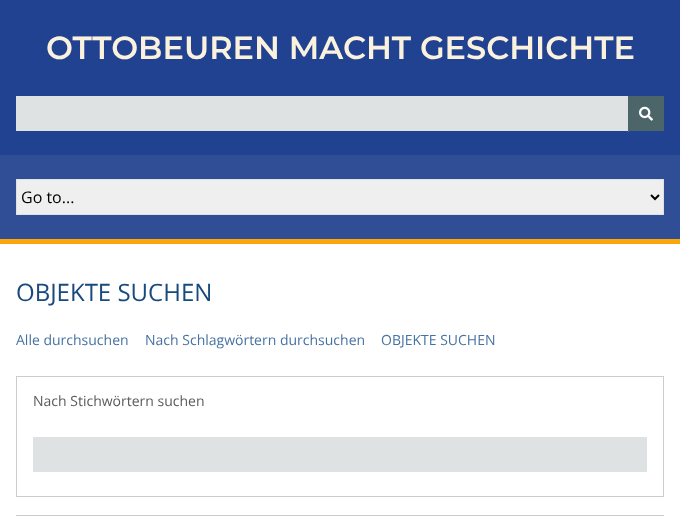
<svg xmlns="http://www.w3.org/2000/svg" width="680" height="516">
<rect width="100%" height="100%" fill="#204291"/>
<rect x="628" y="131" width="1" height="1" fill="#4d68a7"/>
<text x="46" y="59" style="font-family:Montserrat;font-size:32px;font-weight:600;fill:#fbf2dd">OTTOBEUREN MACHT GESCHICHTE</text>
<rect x="16" y="96" width="612" height="35" fill="#dfe2e2"/>
<rect x="628" y="96" width="36" height="35" fill="#4b6569"/>
<image x="639" y="106" width="14" height="15" href="media/1.png"/>
<rect y="155" width="680" height="84" fill="#304e95"/>
<rect y="239" width="680" height="5" fill="#fba709"/>
<rect x="16.5" y="179.5" width="647" height="35" fill="#efefef" stroke="#dfe2e2"/>
<path d="M651 195l4 4l4-4" fill="none" stroke="#000" stroke-width="2"/>
<text x="21" y="203" style="font-family:Open Sans;font-size:16px;fill:#000">Go to...</text>
<rect y="244" width="680" height="272" fill="#fff"/>
<text x="16" y="301" style="font-family:Open Sans;font-size:24px;fill:#194a7e">OBJEKTE SUCHEN</text>
<text x="16" y="345" style="font-family:Open Sans;font-size:14px;fill:#4672a2">Alle durchsuchen</text>
<text x="145" y="345" style="font-family:Open Sans;font-size:14px;fill:#4672a2">Nach Schlagwörtern durchsuchen</text>
<text x="381" y="345" style="font-family:Open Sans;font-size:14px;fill:#4672a2">OBJEKTE SUCHEN</text>
<rect x="16.5" y="376.5" width="647" height="120" fill="none" stroke="#ccc"/>
<text x="33" y="406" style="font-family:Open Sans;font-size:14px;fill:#5a5a5a">Nach Stichwörtern suchen</text>
<rect x="33" y="437" width="614" height="35" fill="#dfe2e2"/>
<rect x="16.5" y="515.5" width="647" height="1" fill="none" stroke="#ccc"/>
</svg>
